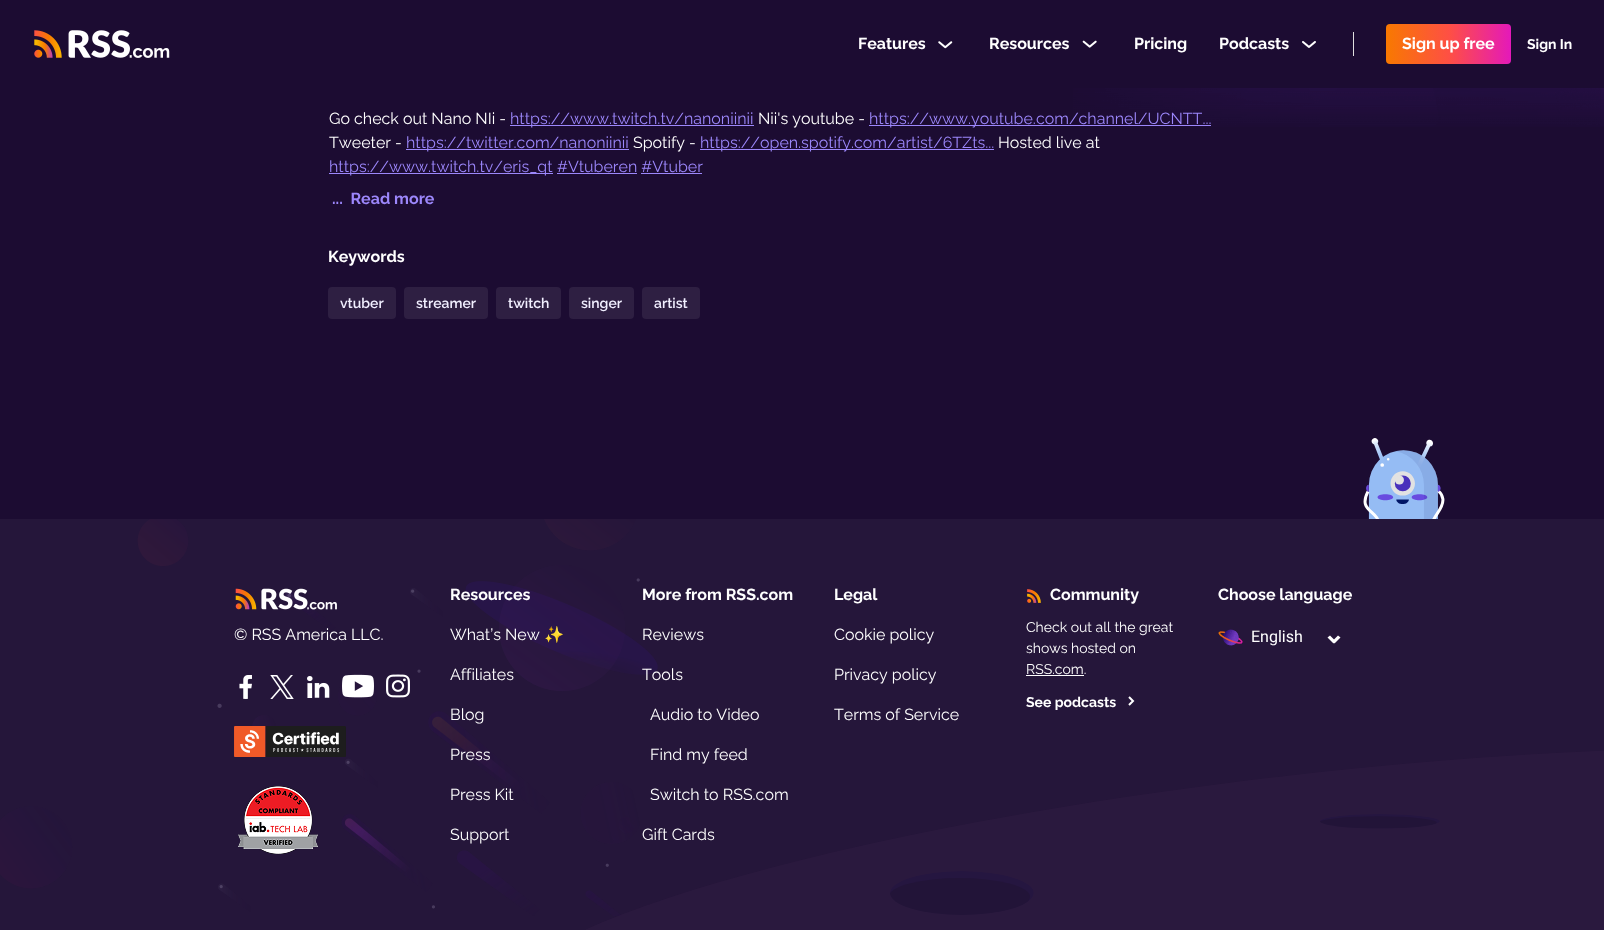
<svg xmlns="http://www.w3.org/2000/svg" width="1604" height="930">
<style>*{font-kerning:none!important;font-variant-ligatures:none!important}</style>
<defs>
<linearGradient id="g1" gradientUnits="userSpaceOnUse" x1="1386" y1="44" x2="1511" y2="44"><stop offset="0" stop-color="#f87900"/><stop offset="0.51" stop-color="#fe4f45"/><stop offset="1" stop-color="#e419ba"/></linearGradient>
</defs>
<rect width="100%" height="100%" fill="#1c0c32"/>
<image x="34" y="30" width="136" height="28" href="media/1.png"/>
<text x="858" y="49" style="font-family:Raleway;font-size:16px;font-weight:100;fill:#fff">Features</text>
<image x="938" y="41" width="15" height="8" href="media/2.png"/>
<text x="989" y="49" style="font-family:Raleway;font-size:16px;font-weight:100;fill:#fff">Resources</text>
<image x="1082" y="40" width="15" height="8" href="media/3.png"/>
<text x="1134" y="49" style="font-family:Raleway;font-size:16px;font-weight:100;fill:#fff">Pricing</text>
<rect x="1353" y="32" width="1" height="24" fill="#dfdfdf"/>
<text x="1219" y="49" style="font-family:Raleway;font-size:16px;font-weight:100;fill:#fff">Podcasts</text>
<image x="1302" y="41" width="14" height="7" href="media/4.png"/>
<rect x="1386" y="24" width="125" height="40" rx="4" fill="url(#g1)"/>
<text x="1402" y="49" style="font-family:Raleway;font-size:16px;font-weight:100;fill:#fff">Sign up free</text>
<text x="1527" y="49" style="font-family:Raleway;font-size:14px;font-weight:100;fill:#fff">Sign In</text>
<image x="1073" y="88" width="531" height="39" href="media/5.png"/>
<text x="329" y="124" style="font-family:'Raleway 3';font-size:16px;font-weight:100;fill:#fff">Go check out Nano NIi -</text>
<rect x="510" y="125" width="244" height="1" fill="#9c87fb"/>
<text x="510" y="124" style="font-family:'Raleway 3';font-size:16px;font-weight:100;fill:#9c87fb">https://www.twitch.tv/nanoniinii</text>
<text x="758" y="124" style="font-family:'Raleway 3';font-size:16px;font-weight:100;fill:#fff">Nii's youtube -</text>
<rect x="869" y="125" width="342" height="1" fill="#9c87fb"/>
<text x="869" y="124" style="font-family:'Raleway 3';font-size:16px;font-weight:100;fill:#9c87fb">https://www.youtube.com/channel/UCNTT...</text>
<text x="329" y="148" style="font-family:'Raleway 3';font-size:16px;font-weight:100;fill:#fff">Tweeter -</text>
<rect x="406" y="149" width="223" height="1" fill="#9c87fb"/>
<text x="406" y="148" style="font-family:'Raleway 3';font-size:16px;font-weight:100;fill:#9c87fb">https://twitter.com/nanoniinii</text>
<text x="633" y="148" style="font-family:'Raleway 3';font-size:16px;font-weight:100;fill:#fff">Spotify -</text>
<rect x="700" y="149" width="294" height="1" fill="#9c87fb"/>
<text x="700" y="148" style="font-family:'Raleway 3';font-size:16px;font-weight:100;fill:#9c87fb">https://open.spotify.com/artist/6TZts...</text>
<text x="998" y="148" style="font-family:'Raleway 3';font-size:16px;font-weight:100;fill:#fff">Hosted live at</text>
<rect x="329" y="173" width="224" height="1" fill="#9c87fb"/>
<text x="329" y="172" style="font-family:'Raleway 3';font-size:16px;font-weight:100;fill:#9c87fb">https://www.twitch.tv/eris_qt</text>
<text x="557" y="172" style="font-family:'Raleway 3';font-size:16px;font-weight:100;fill:#9c87fb">#Vtuberen #Vtuber</text>
<rect x="557" y="173" width="80" height="1" fill="#9c87fb"/>
<rect x="641" y="173" width="61" height="1" fill="#9c87fb"/>
<text x="332" y="204" style="font-family:Raleway;font-size:16px;font-weight:100;fill:#9c87fb" xml:space="preserve">...  Read more</text>
<text x="328" y="262" style="font-family:Raleway;font-size:16px;font-weight:100;fill:#fff">Keywords</text>
<rect x="328" y="287" width="68" height="32" rx="4" fill="#2e1f42"/>
<text x="340" y="308" style="font-family:'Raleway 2';font-size:14px;font-weight:100;fill:#f1efff">vtuber</text>
<rect x="404" y="287" width="84" height="32" rx="4" fill="#2e1f42"/>
<text x="416" y="308" style="font-family:'Raleway 2';font-size:14px;font-weight:100;fill:#f1efff">streamer</text>
<rect x="496" y="287" width="65" height="32" rx="4" fill="#2e1f42"/>
<text x="508" y="308" style="font-family:'Raleway 2';font-size:14px;font-weight:100;fill:#f1efff">twitch</text>
<rect x="569" y="287" width="65" height="32" rx="4" fill="#2e1f42"/>
<text x="581" y="308" style="font-family:'Raleway 2';font-size:14px;font-weight:100;fill:#f1efff">singer</text>
<rect x="642" y="287" width="58" height="32" rx="4" fill="#2e1f42"/>
<text x="654" y="308" style="font-family:'Raleway 2';font-size:14px;font-weight:100;fill:#f1efff">artist</text>
<image x="1363" y="438" width="82" height="81" href="media/6.png"/>
<rect y="519" width="1604" height="411" fill="#25163a"/>
<image x="0" y="519" width="658" height="397" href="media/7.png"/>
<image x="235" y="588" width="102" height="22" href="media/8.png"/>
<text x="234" y="640" style="font-family:'Raleway 3';font-size:16px;font-weight:100;fill:#fff">© RSS America LLC.</text>
<image x="239" y="675" width="13" height="24" href="media/9.png"/>
<image x="270" y="675" width="24" height="24" href="media/10.png"/>
<image x="307" y="676" width="23" height="22" href="media/11.png"/>
<image x="342" y="674" width="32" height="24" href="media/12.png"/>
<image x="386" y="674" width="24" height="24" href="media/13.png"/>
<image x="234" y="726" width="112" height="31" href="media/14.png"/>
<image x="238" y="786" width="80" height="69" href="media/15.png"/>
<text x="450" y="600" style="font-family:Raleway;font-size:16px;font-weight:100;fill:#fff">Resources</text>
<text x="450" y="640" style="font-family:'Raleway 3';font-size:16px;font-weight:100;fill:#fff">What’s New</text>
<text x="544" y="640" style="font-family:Noto Color Emoji;font-size:16px;fill:#fff">✨</text>
<text x="450" y="680" style="font-family:'Raleway 3';font-size:16px;font-weight:100;fill:#fff">Affiliates</text>
<text x="450" y="720" style="font-family:'Raleway 3';font-size:16px;font-weight:100;fill:#fff">Blog</text>
<text x="450" y="760" style="font-family:'Raleway 3';font-size:16px;font-weight:100;fill:#fff">Press</text>
<text x="450" y="800" style="font-family:'Raleway 3';font-size:16px;font-weight:100;fill:#fff">Press Kit</text>
<text x="450" y="840" style="font-family:'Raleway 3';font-size:16px;font-weight:100;fill:#fff">Support</text>
<text x="642" y="600" style="font-family:Raleway;font-size:16px;font-weight:100;fill:#fff">More from RSS.com</text>
<text x="642" y="640" style="font-family:'Raleway 3';font-size:16px;font-weight:100;fill:#fff">Reviews</text>
<text x="642" y="680" style="font-family:'Raleway 3';font-size:16px;font-weight:100;fill:#fff">Tools</text>
<text x="650" y="720" style="font-family:'Raleway 3';font-size:16px;font-weight:100;fill:#fff">Audio to Video</text>
<image x="586" y="751" width="1018" height="179" href="media/18.png"/>
<text x="650" y="760" style="font-family:'Raleway 3';font-size:16px;font-weight:100;fill:#fff">Find my feed</text>
<text x="650" y="800" style="font-family:'Raleway 3';font-size:16px;font-weight:100;fill:#fff">Switch to RSS.com</text>
<text x="642" y="840" style="font-family:'Raleway 3';font-size:16px;font-weight:100;fill:#fff">Gift Cards</text>
<text x="834" y="600" style="font-family:Raleway;font-size:16px;font-weight:100;fill:#fff">Legal</text>
<text x="834" y="640" style="font-family:'Raleway 3';font-size:16px;font-weight:100;fill:#fff">Cookie policy</text>
<text x="834" y="680" style="font-family:'Raleway 3';font-size:16px;font-weight:100;fill:#fff">Privacy policy</text>
<text x="834" y="720" style="font-family:'Raleway 3';font-size:16px;font-weight:100;fill:#fff">Terms of Service</text>
<image x="1027" y="589" width="14" height="14" href="media/16.png"/>
<text x="1050" y="600" style="font-family:Raleway;font-size:16px;font-weight:100;fill:#fff">Community</text>
<text x="1026" y="632" style="font-family:'Raleway 3';font-size:14px;font-weight:100;fill:#fff">Check out all the great</text>
<text x="1026" y="653" style="font-family:'Raleway 3';font-size:14px;font-weight:100;fill:#fff">shows hosted on</text>
<text x="1026" y="674" style="font-family:'Raleway 3';font-size:14px;font-weight:100;fill:#fff">RSS.com.</text>
<rect x="1026" y="675" width="58" height="1" fill="#fff"/>
<text x="1026" y="707" style="font-family:Raleway;font-size:14px;font-weight:100;fill:#fff">See podcasts</text>
<path d="M1129 697l4 4l-4 4m4-4h-1" fill="none" stroke="#fff" stroke-width="2"/>
<text x="1218" y="600" style="font-family:Raleway;font-size:16px;font-weight:100;fill:#fff">Choose language</text>
<image x="1218" y="629" width="25" height="17" href="media/17.png"/>
<text x="1251" y="642" style="font-family:Roboto;font-size:16px;fill:#fff">English</text>
<path d="M1332.5 641l5.5-5.5l2.5 2l-6 6z" fill="#fff"/>
<path d="M1327.5 637.5l2.5-2l5.5 5.5l-2 2.5z" fill="#fff"/>
</svg>
